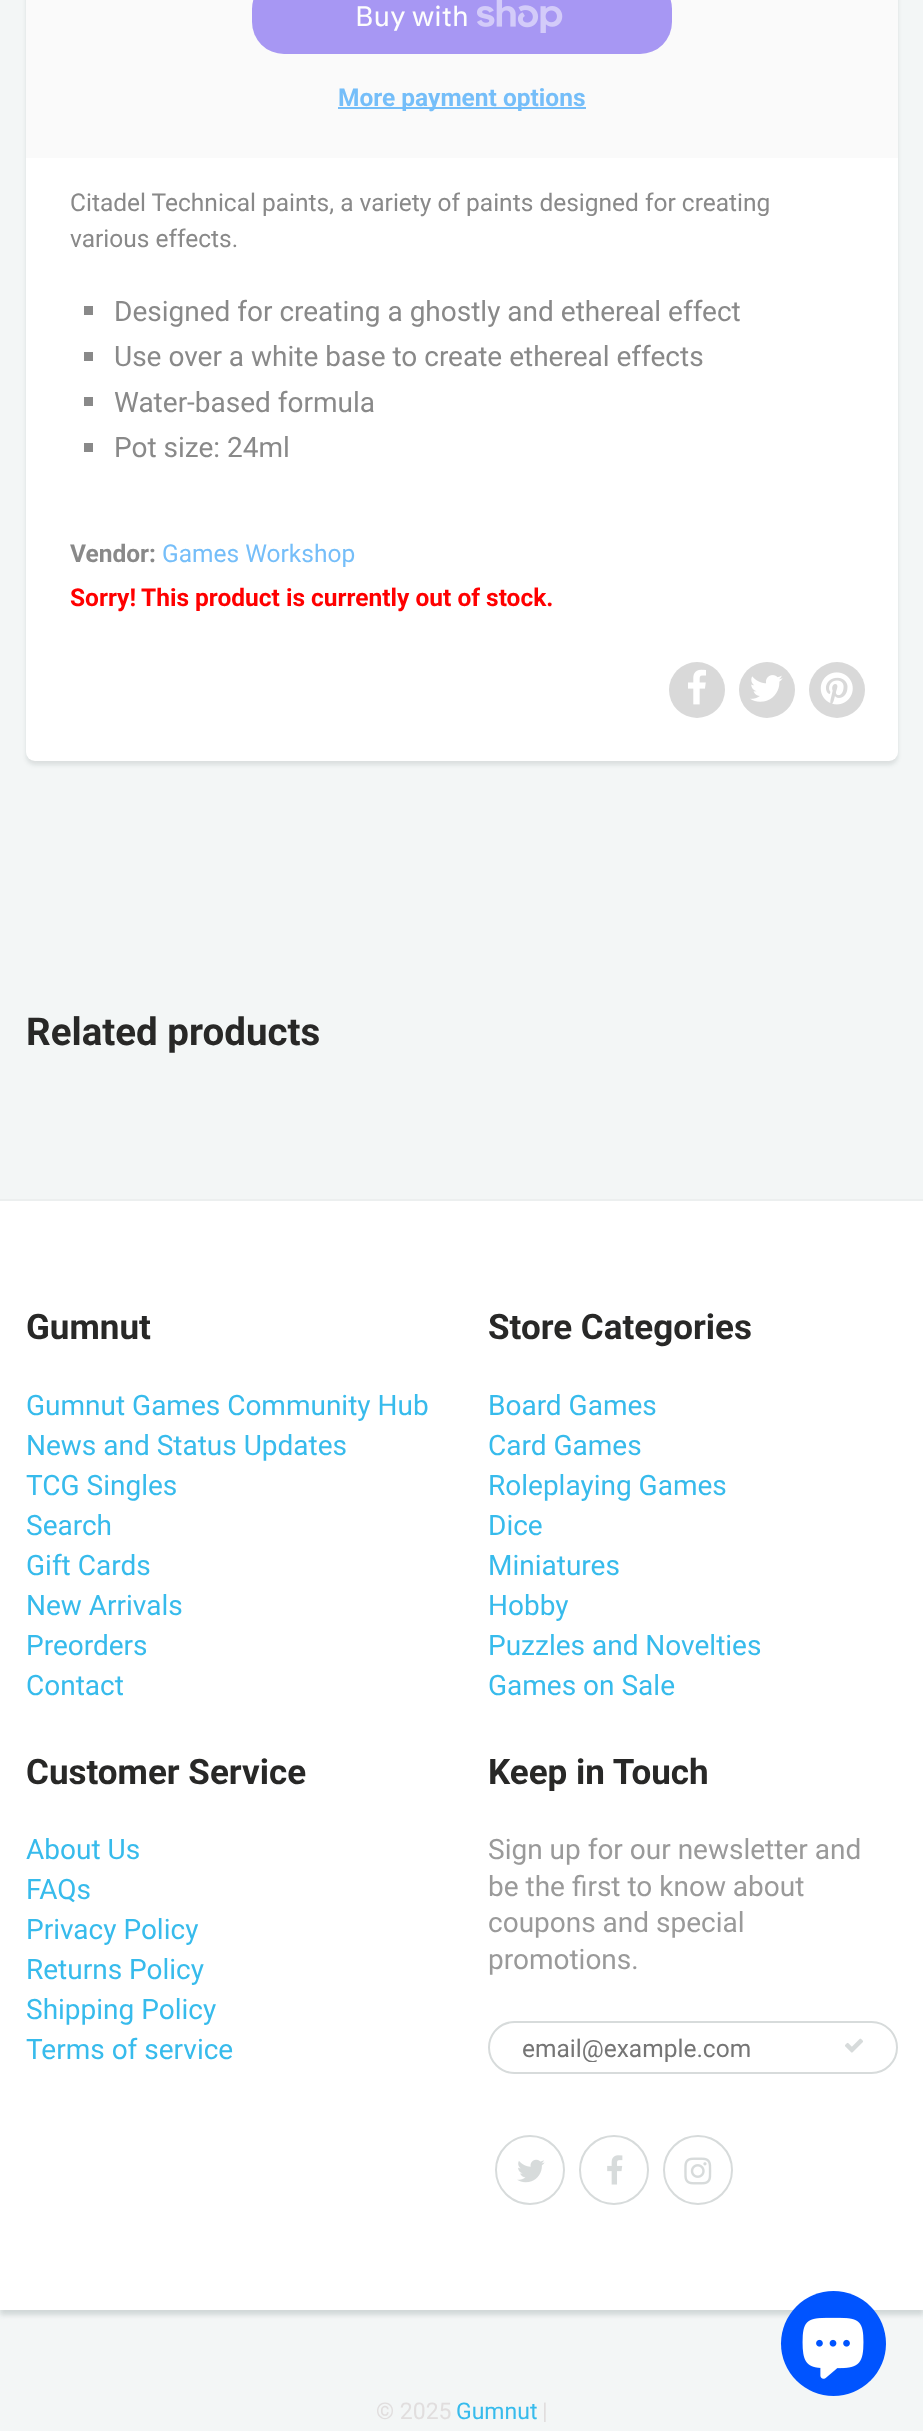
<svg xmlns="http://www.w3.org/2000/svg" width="923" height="2431">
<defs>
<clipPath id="clip1"><rect x="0" y="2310" width="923" height="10"/></clipPath>
<clipPath id="clip2"><rect x="522" y="2034" width="313" height="28"/></clipPath>
</defs>
<rect width="100%" height="100%" fill="#fff"/>
<rect width="923" height="1199" fill="#f3f6f6"/>
<rect x="26" y="-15" width="872" height="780" rx="9" fill="#0b191c1a" filter="blur(2px)"/>
<rect x="26" y="-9" width="872" height="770" rx="9" fill="#fff"/>
<rect x="26" width="872" height="158" fill="#fafafa"/>
<rect x="252" y="-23" width="420" height="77" rx="32" fill="#a797f3"/>
<text x="355" y="26" style="font-family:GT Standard;font-size:28px;fill:#fdfdfd">Buy with</text>
<image x="477" y="0" width="86" height="33" href="media/1.png"/>
<rect x="338" y="107" width="248" height="2" fill="#75bef9"/>
<text x="338" y="106" style="font-family:Roboto;font-size:24.5px;font-weight:bold;fill:#75bef9">More payment options</text>
<text x="70" y="211" style="font-family:Roboto;font-size:24.5px;fill:#898989">Citadel Technical paints, a variety of paints designed for creating</text>
<text x="70" y="247" style="font-family:Roboto;font-size:24.5px;fill:#898989">various effects.</text>
<rect x="84" y="306" width="9" height="9" fill="#898989"/>
<text x="114" y="321" style="font-family:Roboto;font-size:28px;fill:#898989">Designed for creating a ghostly and ethereal effect</text>
<rect x="84" y="352" width="9" height="9" fill="#898989"/>
<text x="114" y="366" style="font-family:Roboto;font-size:28px;fill:#898989">Use over a white base to create ethereal effects</text>
<rect x="84" y="397" width="9" height="9" fill="#898989"/>
<text x="114" y="412" style="font-family:Roboto;font-size:28px;fill:#898989">Water-based formula</text>
<rect x="84" y="443" width="9" height="9" fill="#898989"/>
<text x="114" y="457" style="font-family:Roboto;font-size:28px;fill:#898989">Pot size: 24ml</text>
<text x="70" y="562" style="font-family:Roboto;font-size:24.5px;font-weight:bold;fill:#898989">Vendor:</text>
<text x="162" y="562" style="font-family:Roboto;font-size:24.5px;fill:#75bef9">Games Workshop</text>
<text x="70" y="606" style="font-family:Roboto;font-size:24.5px;font-weight:bold;fill:#f00">Sorry!</text>
<text x="141" y="606" style="font-family:Roboto;font-size:24.5px;font-weight:bold;fill:#f00">This product is currently out of stock.</text>
<circle cx="697" cy="690" r="28" fill="#d9d9d9"/>
<image x="688" y="669" width="18" height="36" href="media/2.png"/>
<circle cx="767" cy="690" r="28" fill="#d9d9d9"/>
<image x="750" y="675" width="33" height="27" href="media/3.png"/>
<circle cx="837" cy="690" r="28" fill="#d9d9d9"/>
<image x="820" y="672" width="33" height="33" href="media/4.png"/>
<text x="26" y="1045" style="font-family:Roboto;font-size:38.5px;font-weight:bold;fill:#282827">Related products</text>
<rect y="2310" width="923" height="121" fill="#f3f6f6"/>
<g clip-path="url(#clip1)">
<rect y="1204" width="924" height="1111" fill="#d1d7d7" filter="blur(2.5px)"/>
</g>
<rect y="1199" width="923" height="2" fill="#ecefef"/>
<text x="26" y="1339" style="font-family:Roboto;font-size:35px;font-weight:bold;fill:#282827">Gumnut</text>
<text x="26" y="1415" style="font-family:Roboto;font-size:28px;fill:#37bbec">Gumnut Games Community Hub</text>
<text x="26" y="1455" style="font-family:Roboto;font-size:28px;fill:#37bbec">News and Status Updates</text>
<text x="26" y="1495" style="font-family:Roboto;font-size:28px;fill:#37bbec">TCG Singles</text>
<text x="26" y="1535" style="font-family:Roboto;font-size:28px;fill:#37bbec">Search</text>
<text x="26" y="1575" style="font-family:Roboto;font-size:28px;fill:#37bbec">Gift Cards</text>
<text x="26" y="1615" style="font-family:Roboto;font-size:28px;fill:#37bbec">New Arrivals</text>
<text x="26" y="1655" style="font-family:Roboto;font-size:28px;fill:#37bbec">Preorders</text>
<text x="26" y="1695" style="font-family:Roboto;font-size:28px;fill:#37bbec">Contact</text>
<text x="488" y="1339" style="font-family:Roboto;font-size:35px;font-weight:bold;fill:#282827">Store Categories</text>
<text x="488" y="1415" style="font-family:Roboto;font-size:28px;fill:#37bbec">Board Games</text>
<text x="488" y="1455" style="font-family:Roboto;font-size:28px;fill:#37bbec">Card Games</text>
<text x="488" y="1495" style="font-family:Roboto;font-size:28px;fill:#37bbec">Roleplaying Games</text>
<text x="488" y="1535" style="font-family:Roboto;font-size:28px;fill:#37bbec">Dice</text>
<text x="488" y="1575" style="font-family:Roboto;font-size:28px;fill:#37bbec">Miniatures</text>
<text x="488" y="1615" style="font-family:Roboto;font-size:28px;fill:#37bbec">Hobby</text>
<text x="488" y="1655" style="font-family:Roboto;font-size:28px;fill:#37bbec">Puzzles and Novelties</text>
<text x="488" y="1695" style="font-family:Roboto;font-size:28px;fill:#37bbec">Games on Sale</text>
<text x="26" y="1784" style="font-family:Roboto;font-size:35px;font-weight:bold;fill:#282827">Customer Service</text>
<text x="26" y="1859" style="font-family:Roboto;font-size:28px;fill:#37bbec">About Us</text>
<text x="26" y="1899" style="font-family:Roboto;font-size:28px;fill:#37bbec">FAQs</text>
<text x="26" y="1939" style="font-family:Roboto;font-size:28px;fill:#37bbec">Privacy Policy</text>
<text x="26" y="1979" style="font-family:Roboto;font-size:28px;fill:#37bbec">Returns Policy</text>
<text x="26" y="2019" style="font-family:Roboto;font-size:28px;fill:#37bbec">Shipping Policy</text>
<text x="26" y="2059" style="font-family:Roboto;font-size:28px;fill:#37bbec">Terms of service</text>
<text x="488" y="1784" style="font-family:Roboto;font-size:35px;font-weight:bold;fill:#282827">Keep in Touch</text>
<text x="488" y="1859" style="font-family:Roboto;font-size:28px;fill:#9a9a9a">Sign up for our newsletter and</text>
<text x="488" y="1896" style="font-family:Roboto;font-size:28px;fill:#9a9a9a">be the first to know about</text>
<text x="488" y="1932" style="font-family:Roboto;font-size:28px;fill:#9a9a9a">coupons and special</text>
<text x="488" y="1969" style="font-family:Roboto;font-size:28px;fill:#9a9a9a">promotions.</text>
<rect x="489" y="2022" width="408" height="51" rx="25.5" fill="none" stroke="#d7dbdb" stroke-width="2"/>
<g clip-path="url(#clip2)">
<text x="522" y="2057" style="font-family:Roboto;font-size:24.5px;fill:#757575">email@example.com</text>
</g>
<image x="845" y="2038" width="18" height="15" href="media/5.png"/>
<circle cx="530" cy="2170" r="34" fill="none" stroke="#d7dbdb" stroke-width="2"/>
<image x="517" y="2159" width="28" height="24" href="media/6.png"/>
<circle cx="614" cy="2170" r="34" fill="none" stroke="#d7dbdb" stroke-width="2"/>
<image x="607" y="2155" width="16" height="30" href="media/7.png"/>
<circle cx="698" cy="2170" r="34" fill="none" stroke="#d7dbdb" stroke-width="2"/>
<image x="684" y="2157" width="28" height="28" href="media/8.png"/>
<text x="376" y="2419" style="font-family:Roboto;font-size:23px;fill:#e1dede">© 2025</text>
<text x="456" y="2419" style="font-family:Roboto;font-size:23px;fill:#37bbec">Gumnut</text>
<text x="542" y="2419" style="font-family:Roboto;font-size:23px;fill:#e1dede">|</text>
<circle cx="833.5" cy="2343.5" r="52.5" fill="#0054ff"/>
<image x="802" y="2317" width="62" height="62" href="media/9.png"/>
</svg>
